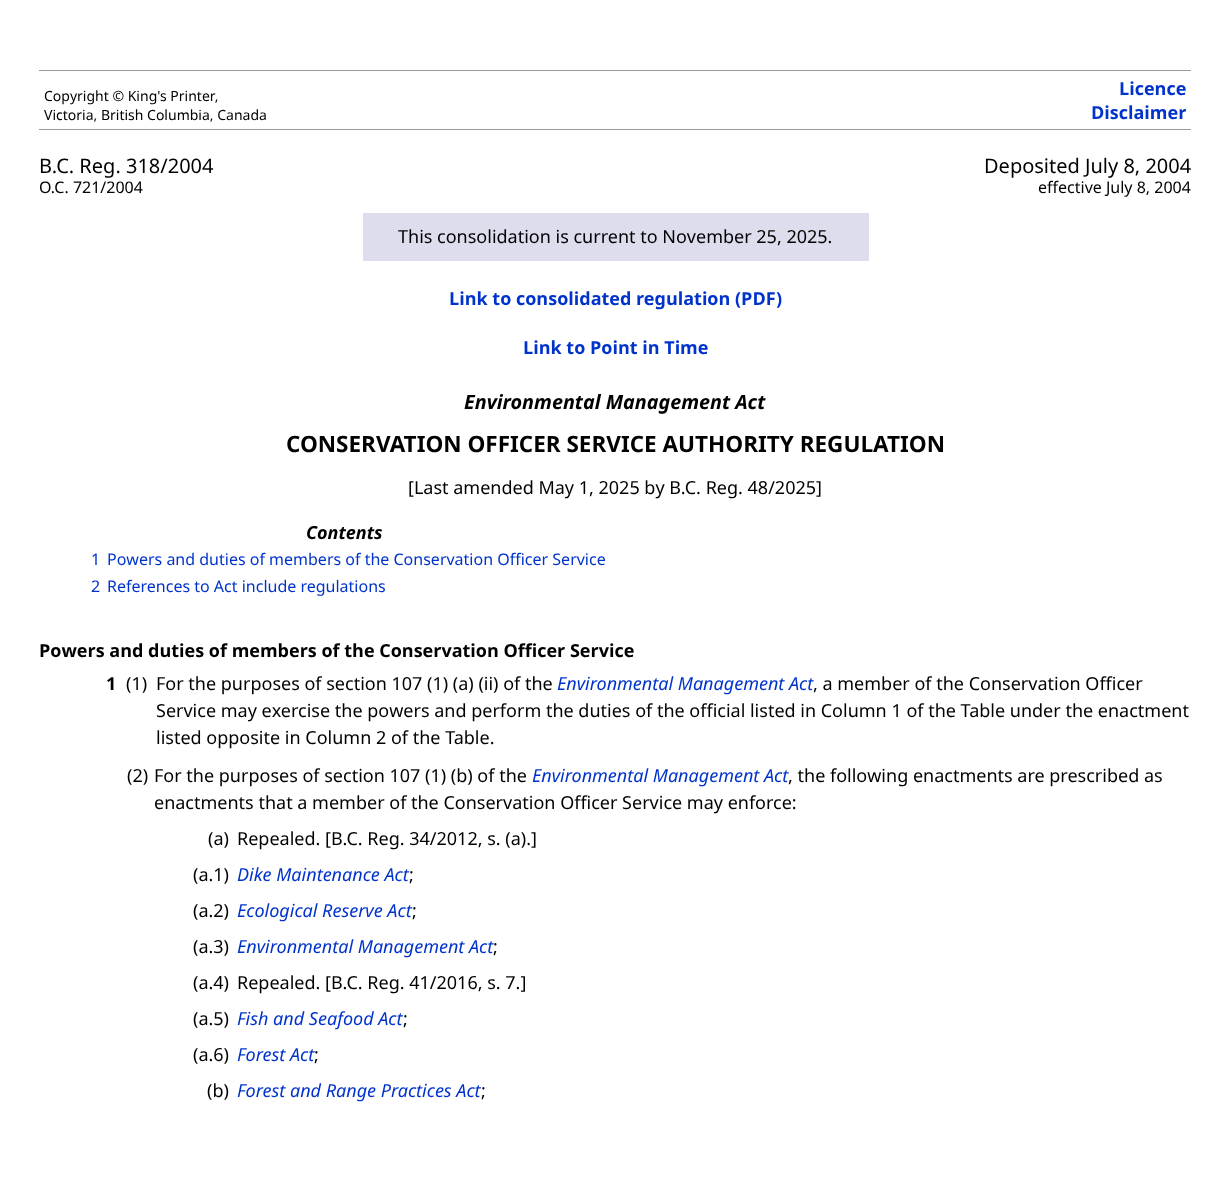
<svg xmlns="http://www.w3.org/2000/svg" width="1231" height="1201">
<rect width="100%" height="100%" fill="#fff"/>
<rect x="39" y="70" width="1152" height="1" fill="#999"/>
<rect x="39" y="129" width="1152" height="1" fill="#999"/>
<text x="44" y="101" style="font-family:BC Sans;font-size:14px;fill:#000">Copyright © King's Printer,</text>
<text x="44" y="120" style="font-family:BC Sans;font-size:14px;fill:#000">Victoria, British Columbia, Canada</text>
<text x="1119" y="95" style="font-family:BC Sans;font-size:18px;font-weight:bold;fill:#03c">Licence</text>
<text x="1091" y="119" style="font-family:BC Sans;font-size:18px;font-weight:bold;fill:#03c">Disclaimer</text>
<text x="39" y="173" style="font-family:BC Sans;font-size:20px;fill:#000">B.C. Reg. 318/2004</text>
<text x="39" y="193" style="font-family:BC Sans;font-size:16px;fill:#000">O.C. 721/2004</text>
<text x="984" y="173" style="font-family:BC Sans;font-size:20px;fill:#000">Deposited July 8, 2004</text>
<text x="1038" y="193" style="font-family:BC Sans;font-size:16px;fill:#000">effective July 8, 2004</text>
<rect x="363" y="213" width="506" height="48" fill="#dedded"/>
<text x="398" y="243" style="font-family:BC Sans;font-size:18px;fill:#000">This consolidation is current to November 25, 2025.</text>
<text x="449" y="305" style="font-family:BC Sans;font-size:18px;font-weight:bold;fill:#03c">Link to consolidated regulation (PDF)</text>
<text x="523" y="354" style="font-family:BC Sans;font-size:18px;font-weight:bold;fill:#03c">Link to Point in Time</text>
<text x="464" y="409" style="font-family:BC Sans;font-size:19.75px;font-weight:bold;font-style:italic;fill:#000">Environmental Management Act</text>
<text x="286" y="452" style="font-family:BC Sans;font-size:22.5px;font-weight:bold;fill:#000">CONSERVATION OFFICER SERVICE AUTHORITY REGULATION</text>
<text x="408" y="494" style="font-family:BC Sans;font-size:18px;fill:#000">[Last amended May 1, 2025 by B.C. Reg. 48/2025]</text>
<text x="306" y="539" style="font-family:BC Sans;font-size:18px;font-weight:bold;font-style:italic;fill:#000">Contents</text>
<text x="91" y="565" style="font-family:BC Sans;font-size:16px;fill:#03c">1</text>
<text x="107" y="565" style="font-family:BC Sans;font-size:16px;fill:#03c">Powers and duties of members of the Conservation Officer Service</text>
<text x="91" y="592" style="font-family:BC Sans;font-size:16px;fill:#03c">2</text>
<text x="107" y="592" style="font-family:BC Sans;font-size:16px;fill:#03c">References to Act include regulations</text>
<text x="39" y="657" style="font-family:BC Sans;font-size:18px;font-weight:bold;fill:#000">Powers and duties of members of the Conservation Officer Service</text>
<text x="106" y="690" style="font-family:BC Sans;font-size:18px;font-weight:bold;fill:#000">1</text>
<text x="126" y="690" style="font-family:BC Sans;font-size:18px;fill:#000">(1)</text>
<text x="156" y="690" style="font-family:BC Sans;font-size:18px;fill:#000">For the purposes of section 107 (1) (a) (ii) of the</text>
<text x="557" y="690" style="font-family:BC Sans;font-size:18px;font-style:italic;fill:#03c">Environmental Management Act</text>
<text x="813" y="690" style="font-family:BC Sans;font-size:18px;fill:#000">, a member of the Conservation Officer</text>
<text x="156" y="717" style="font-family:BC Sans;font-size:18px;fill:#000">Service may exercise the powers and perform the duties of the official listed in Column 1 of the Table under the enactment</text>
<text x="156" y="744" style="font-family:BC Sans;font-size:18px;fill:#000">listed opposite in Column 2 of the Table.</text>
<text x="127" y="782" style="font-family:BC Sans;font-size:18px;fill:#000">(2)</text>
<text x="154" y="782" style="font-family:BC Sans;font-size:18px;fill:#000">For the purposes of section 107 (1) (b) of the</text>
<text x="532" y="782" style="font-family:BC Sans;font-size:18px;font-style:italic;fill:#03c">Environmental Management Act</text>
<text x="788" y="782" style="font-family:BC Sans;font-size:18px;fill:#000">, the following enactments are prescribed as</text>
<text x="154" y="809" style="font-family:BC Sans;font-size:18px;fill:#000">enactments that a member of the Conservation Officer Service may enforce:</text>
<text x="208" y="845" style="font-family:BC Sans;font-size:18px;fill:#000">(a)</text>
<text x="237" y="845" style="font-family:BC Sans;font-size:18px;fill:#000">Repealed. [B.C. Reg. 34/2012, s. (a).]</text>
<text x="193" y="881" style="font-family:BC Sans;font-size:18px;fill:#000">(a.1)</text>
<text x="237" y="881" style="font-family:BC Sans;font-size:18px;font-style:italic;fill:#03c">Dike Maintenance Act</text>
<text x="409" y="881" style="font-family:BC Sans;font-size:18px;fill:#000">;</text>
<text x="193" y="917" style="font-family:BC Sans;font-size:18px;fill:#000">(a.2)</text>
<text x="237" y="917" style="font-family:BC Sans;font-size:18px;font-style:italic;fill:#03c">Ecological Reserve Act</text>
<text x="412" y="917" style="font-family:BC Sans;font-size:18px;fill:#000">;</text>
<text x="193" y="953" style="font-family:BC Sans;font-size:18px;fill:#000">(a.3)</text>
<text x="237" y="953" style="font-family:BC Sans;font-size:18px;font-style:italic;fill:#03c">Environmental Management Act</text>
<text x="493" y="953" style="font-family:BC Sans;font-size:18px;fill:#000">;</text>
<text x="193" y="989" style="font-family:BC Sans;font-size:18px;fill:#000">(a.4)</text>
<text x="237" y="989" style="font-family:BC Sans;font-size:18px;fill:#000">Repealed. [B.C. Reg. 41/2016, s. 7.]</text>
<text x="193" y="1025" style="font-family:BC Sans;font-size:18px;fill:#000">(a.5)</text>
<text x="237" y="1025" style="font-family:BC Sans;font-size:18px;font-style:italic;fill:#03c">Fish and Seafood Act</text>
<text x="403" y="1025" style="font-family:BC Sans;font-size:18px;fill:#000">;</text>
<text x="193" y="1061" style="font-family:BC Sans;font-size:18px;fill:#000">(a.6)</text>
<text x="237" y="1061" style="font-family:BC Sans;font-size:18px;font-style:italic;fill:#03c">Forest Act</text>
<text x="314" y="1061" style="font-family:BC Sans;font-size:18px;fill:#000">;</text>
<text x="207" y="1097" style="font-family:BC Sans;font-size:18px;fill:#000">(b)</text>
<text x="237" y="1097" style="font-family:BC Sans;font-size:18px;font-style:italic;fill:#03c">Forest and Range Practices Act</text>
<text x="481" y="1097" style="font-family:BC Sans;font-size:18px;fill:#000">;</text>
</svg>
